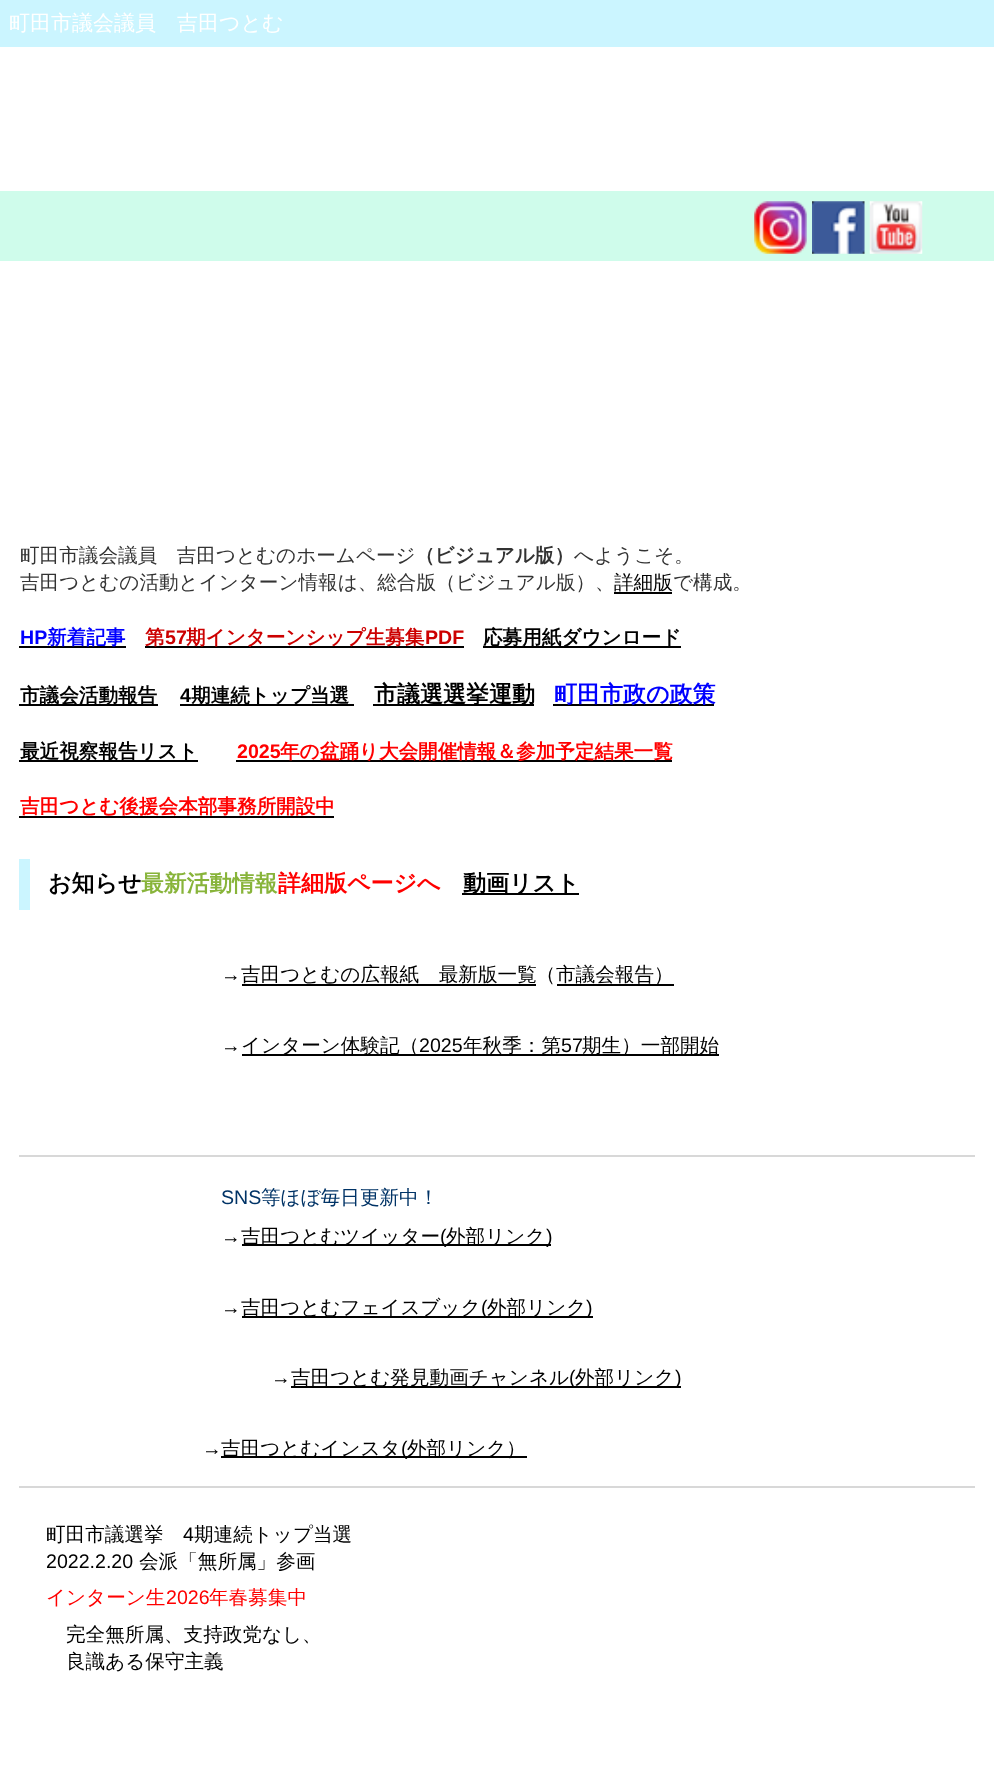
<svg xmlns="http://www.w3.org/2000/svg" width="994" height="1779">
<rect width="100%" height="100%" fill="#fff"/>
<rect width="994" height="47" fill="#cbf5ff"/>
<text x="9" y="30" style="font-family:WenQuanYi Zen Hei;font-size:21px;font-weight:500;fill:#fff">町田市議会議員　吉田つとむ</text>
<rect y="191" width="994" height="70" fill="#cffceb"/>
<image x="754" y="201" width="53" height="53" href="media/1.png"/>
<image x="812" y="201" width="53" height="53" href="media/2.png"/>
<image x="869" y="201" width="54" height="53" href="media/3.png"/>
<text x="20" y="562" style="font-family:WenQuanYi Zen Hei;font-size:19.6px;font-weight:500;fill:#333">町田市議会議員　吉田つとむのホームページ</text>
<text x="415" y="562" style="font-family:WenQuanYi Zen Hei;font-size:19.6px;font-weight:bold;fill:#333">（ビジュアル版）</text>
<text x="574" y="562" style="font-family:WenQuanYi Zen Hei;font-size:19.6px;font-weight:500;fill:#333">へようこそ。</text>
<text x="20" y="589" style="font-family:WenQuanYi Zen Hei;font-size:19.6px;font-weight:500;fill:#333">吉田つとむの活動とインターン情報は、総合版（ビジュアル版）、</text>
<text x="614" y="589" style="font-family:WenQuanYi Zen Hei;font-size:19.6px;font-weight:500;fill:#000">詳細版</text>
<rect x="614" y="592" width="58" height="2" fill="#000"/>
<text x="673" y="589" style="font-family:WenQuanYi Zen Hei;font-size:19.6px;font-weight:500;fill:#333">で構成。</text>
<text x="20" y="644" style="font-family:Liberation Sans;font-size:19.6px;font-weight:bold;fill:#00f">HP</text>
<rect x="19" y="646" width="107" height="2" fill="#000"/>
<text x="47" y="644" style="font-family:WenQuanYi Zen Hei;font-size:19.6px;font-weight:bold;fill:#00f">新着記事</text>
<rect x="145" y="646" width="319" height="2" fill="#000"/>
<text x="145" y="644" style="font-family:WenQuanYi Zen Hei;font-size:19.6px;font-weight:bold;fill:#c00">第</text>
<text x="165" y="644" style="font-family:Liberation Sans;font-size:19.6px;font-weight:bold;fill:#c00">57</text>
<text x="186" y="644" style="font-family:WenQuanYi Zen Hei;font-size:19.6px;font-weight:bold;fill:#c00">期インターンシップ生募集</text>
<text x="425" y="644" style="font-family:Liberation Sans;font-size:19.6px;font-weight:bold;fill:#c00">PDF</text>
<rect x="483" y="646" width="198" height="2" fill="#000"/>
<text x="483" y="644" style="font-family:WenQuanYi Zen Hei;font-size:19.6px;font-weight:bold;fill:#000">応募用紙ダウンロード</text>
<rect x="19" y="704" width="139" height="2" fill="#000"/>
<text x="20" y="702" style="font-family:WenQuanYi Zen Hei;font-size:19.6px;font-weight:bold;fill:#000">市議会活動報告</text>
<text x="180" y="702" style="font-family:Liberation Sans;font-size:19.6px;font-weight:bold;fill:#000">4</text>
<rect x="180" y="704" width="174" height="2" fill="#000"/>
<text x="191" y="702" style="font-family:WenQuanYi Zen Hei;font-size:19.6px;font-weight:bold;fill:#000">期連続トップ当選</text>
<rect x="373" y="704" width="161" height="2" fill="#000"/>
<text x="374" y="702" style="font-family:WenQuanYi Zen Hei;font-size:23px;font-weight:bold;fill:#000">市議選選挙運動</text>
<rect x="553" y="704" width="161" height="2" fill="#000"/>
<text x="554" y="702" style="font-family:WenQuanYi Zen Hei;font-size:23px;font-weight:bold;fill:#00f">町田市政の政策</text>
<rect x="19" y="760" width="179" height="2" fill="#000"/>
<text x="20" y="758" style="font-family:WenQuanYi Zen Hei;font-size:19.6px;font-weight:bold;fill:#000">最近視察報告リスト</text>
<text x="237" y="758" style="font-family:Liberation Sans;font-size:19.6px;font-weight:bold;fill:#f00">2025</text>
<rect x="236" y="760" width="436" height="2" fill="#000"/>
<text x="280" y="758" style="font-family:WenQuanYi Zen Hei;font-size:19.6px;font-weight:bold;fill:#f00">年の盆踊り大会開催情報＆参加予定結果一覧</text>
<text x="20" y="813" style="font-family:WenQuanYi Zen Hei;font-size:19.6px;font-weight:bold;fill:#f00">吉田つとむ後援会本部事務所開設中</text>
<rect x="19" y="816" width="315" height="2" fill="#000"/>
<rect x="19" y="859" width="11" height="51" fill="#cbf5ff"/>
<text x="48" y="891" style="font-family:WenQuanYi Zen Hei;font-size:23px;font-weight:bold;fill:#000">お知らせ</text>
<text x="141" y="891" style="font-family:WenQuanYi Zen Hei;font-size:22.75px;font-weight:bold;fill:#88b43a">最新活動情報</text>
<text x="278" y="891" style="font-family:WenQuanYi Zen Hei;font-size:23px;font-weight:bold;fill:#f00">詳細版ページへ</text>
<rect x="462" y="893" width="117" height="2" fill="#000"/>
<text x="463" y="891" style="font-family:WenQuanYi Zen Hei;font-size:23px;font-weight:bold;fill:#000">動画リスト</text>
<text x="221" y="981" style="font-family:Liberation Sans;font-size:19.6px;fill:#000">→</text>
<text x="241" y="981" style="font-family:WenQuanYi Zen Hei;font-size:19.6px;font-weight:500;fill:#000">吉田つとむの広報紙　最新版一覧</text>
<rect x="242" y="984" width="294" height="2" fill="#000"/>
<text x="536" y="981" style="font-family:WenQuanYi Zen Hei;font-size:19.6px;font-weight:500;fill:#000">（</text>
<rect x="557" y="984" width="117" height="2" fill="#000"/>
<text x="556" y="981" style="font-family:WenQuanYi Zen Hei;font-size:19.6px;font-weight:500;fill:#000">市議会報告）</text>
<text x="221" y="1052" style="font-family:Liberation Sans;font-size:19.6px;fill:#000">→</text>
<rect x="242" y="1054" width="477" height="2" fill="#000"/>
<text x="241" y="1052" style="font-family:WenQuanYi Zen Hei;font-size:19.6px;font-weight:500;fill:#000">インターン体験記（</text>
<text x="419" y="1052" style="font-family:Liberation Sans;font-size:19.6px;fill:#000">2025</text>
<text x="463" y="1052" style="font-family:WenQuanYi Zen Hei;font-size:19.6px;font-weight:500;fill:#000">年秋季：第</text>
<text x="561" y="1052" style="font-family:Liberation Sans;font-size:19.6px;fill:#000">57</text>
<text x="582" y="1052" style="font-family:WenQuanYi Zen Hei;font-size:19.6px;font-weight:500;fill:#000">期生）一部開始</text>
<rect x="19" y="1155" width="956" height="2" fill="#d8d8d8"/>
<text x="221" y="1204" style="font-family:Liberation Sans;font-size:19.6px;fill:#036">SNS</text>
<text x="261" y="1204" style="font-family:WenQuanYi Zen Hei;font-size:19.6px;font-weight:500;fill:#036">等ほぼ毎日更新中！</text>
<text x="221" y="1243" style="font-family:Liberation Sans;font-size:19.6px;fill:#000">→</text>
<rect x="242" y="1244" width="309" height="2" fill="#000"/>
<text x="241" y="1243" style="font-family:WenQuanYi Zen Hei;font-size:19.6px;font-weight:500;fill:#000">吉田つとむツイッター</text>
<text x="440" y="1243" style="font-family:Liberation Sans;font-size:19.6px;fill:#000">(</text>
<text x="446" y="1243" style="font-family:WenQuanYi Zen Hei;font-size:19.6px;font-weight:500;fill:#000">外部リンク</text>
<text x="546" y="1243" style="font-family:Liberation Sans;font-size:19.6px;fill:#000">)</text>
<text x="221" y="1314" style="font-family:Liberation Sans;font-size:19.6px;fill:#000">→</text>
<rect x="242" y="1316" width="351" height="2" fill="#000"/>
<text x="241" y="1314" style="font-family:WenQuanYi Zen Hei;font-size:19.6px;font-weight:500;fill:#000">吉田つとむフェイスブック</text>
<text x="481" y="1314" style="font-family:Liberation Sans;font-size:19.6px;fill:#000">(</text>
<text x="487" y="1314" style="font-family:WenQuanYi Zen Hei;font-size:19.6px;font-weight:500;fill:#000">外部リンク</text>
<text x="586" y="1314" style="font-family:Liberation Sans;font-size:19.6px;fill:#000">)</text>
<text x="271" y="1384" style="font-family:Liberation Sans;font-size:19.6px;fill:#000">→</text>
<rect x="291" y="1386" width="390" height="2" fill="#000"/>
<text x="291" y="1384" style="font-family:WenQuanYi Zen Hei;font-size:19.6px;font-weight:500;fill:#000">吉田つとむ発見動画チャンネル</text>
<text x="569" y="1384" style="font-family:Liberation Sans;font-size:19.6px;fill:#000">(</text>
<text x="575" y="1384" style="font-family:WenQuanYi Zen Hei;font-size:19.6px;font-weight:500;fill:#000">外部リンク</text>
<text x="675" y="1384" style="font-family:Liberation Sans;font-size:19.6px;fill:#000">)</text>
<text x="202" y="1455" style="font-family:Liberation Sans;font-size:19.6px;fill:#000">→</text>
<rect x="221" y="1456" width="306" height="2" fill="#000"/>
<text x="221" y="1455" style="font-family:WenQuanYi Zen Hei;font-size:19.6px;font-weight:500;fill:#000">吉田つとむインスタ</text>
<text x="401" y="1455" style="font-family:Liberation Sans;font-size:19.6px;fill:#000">(</text>
<text x="407" y="1455" style="font-family:WenQuanYi Zen Hei;font-size:19.6px;font-weight:500;fill:#000">外部リンク）</text>
<rect x="19" y="1486" width="956" height="2" fill="#d8d8d8"/>
<text x="46" y="1541" style="font-family:WenQuanYi Zen Hei;font-size:19.6px;font-weight:500;fill:#000">町田市議選挙</text>
<text x="183" y="1541" style="font-family:Liberation Sans;font-size:19.6px;fill:#000">4</text>
<text x="194" y="1541" style="font-family:WenQuanYi Zen Hei;font-size:19.6px;font-weight:500;fill:#000">期連続トップ当選</text>
<text x="46" y="1568" style="font-family:Liberation Sans;font-size:19.6px;fill:#000">2022.2.20</text>
<text x="139" y="1568" style="font-family:WenQuanYi Zen Hei;font-size:19.6px;font-weight:500;fill:#000">会派「無所属」参画</text>
<text x="46" y="1604" style="font-family:WenQuanYi Zen Hei;font-size:19.6px;font-weight:500;fill:#f00">インターン生</text>
<text x="166" y="1604" style="font-family:Liberation Sans;font-size:19.6px;fill:#f00">2026</text>
<text x="209" y="1604" style="font-family:WenQuanYi Zen Hei;font-size:19.6px;font-weight:500;fill:#f00">年春募集中</text>
<text x="66" y="1641" style="font-family:WenQuanYi Zen Hei;font-size:19.6px;font-weight:500;fill:#000">完全無所属、支持政党なし、</text>
<text x="66" y="1668" style="font-family:WenQuanYi Zen Hei;font-size:19.6px;font-weight:500;fill:#000">良識ある保守主義</text>
</svg>
